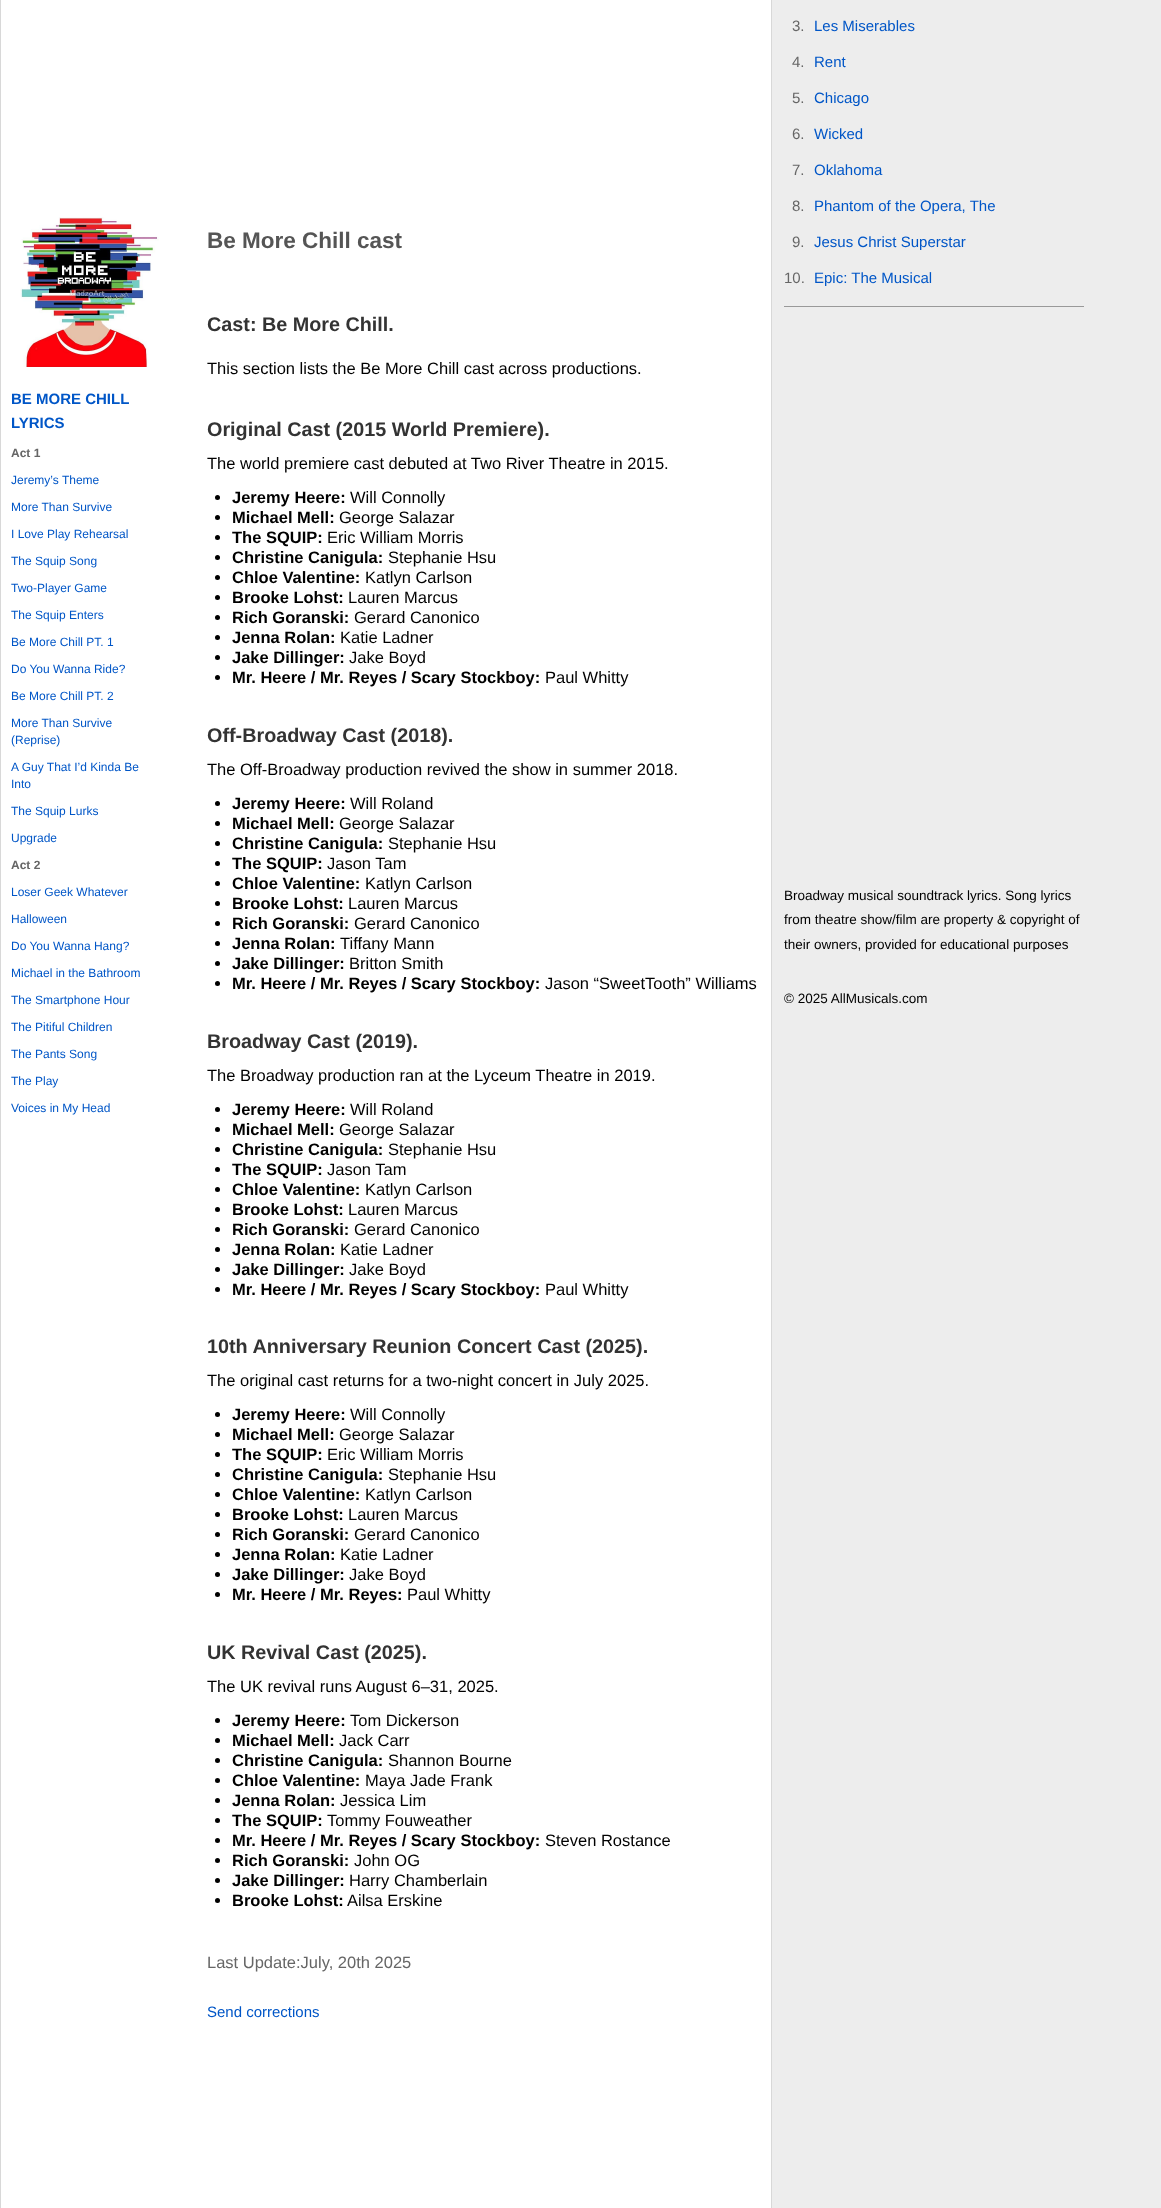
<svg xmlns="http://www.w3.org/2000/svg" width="1161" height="2208">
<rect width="100%" height="100%" fill="#ededed"/>
<rect x="0.5" y="-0.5" width="771" height="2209" fill="#fff" stroke="#d8d8d8"/>
<image x="20" y="217" width="139" height="150" href="media/1.png"/>
<text x="11" y="404" style="font-family:Liberation Sans;font-size:15px;font-weight:bold;fill:#0056c7">BE MORE CHILL</text>
<text x="11" y="428" style="font-family:Liberation Sans;font-size:15px;font-weight:bold;fill:#0056c7">LYRICS</text>
<text x="11" y="457" style="font-family:Liberation Sans;font-size:12px;font-weight:bold;fill:#666">Act 1</text>
<text x="11" y="484" style="font-family:Liberation Sans;font-size:12px;fill:#0056c7">Jeremy’s Theme</text>
<text x="11" y="511" style="font-family:Liberation Sans;font-size:12px;fill:#0056c7">More Than Survive</text>
<text x="11" y="538" style="font-family:Liberation Sans;font-size:12px;fill:#0056c7">I Love Play Rehearsal</text>
<text x="11" y="565" style="font-family:Liberation Sans;font-size:12px;fill:#0056c7">The Squip Song</text>
<text x="11" y="592" style="font-family:Liberation Sans;font-size:12px;fill:#0056c7">Two-Player Game</text>
<text x="11" y="619" style="font-family:Liberation Sans;font-size:12px;fill:#0056c7">The Squip Enters</text>
<text x="11" y="646" style="font-family:Liberation Sans;font-size:12px;fill:#0056c7">Be More Chill PT. 1</text>
<text x="11" y="673" style="font-family:Liberation Sans;font-size:12px;fill:#0056c7">Do You Wanna Ride?</text>
<text x="11" y="700" style="font-family:Liberation Sans;font-size:12px;fill:#0056c7">Be More Chill PT. 2</text>
<text x="11" y="727" style="font-family:Liberation Sans;font-size:12px;fill:#0056c7">More Than Survive</text>
<text x="11" y="744" style="font-family:Liberation Sans;font-size:12px;fill:#0056c7">(Reprise)</text>
<text x="11" y="771" style="font-family:Liberation Sans;font-size:12px;fill:#0056c7">A Guy That I’d Kinda Be</text>
<text x="11" y="788" style="font-family:Liberation Sans;font-size:12px;fill:#0056c7">Into</text>
<text x="11" y="815" style="font-family:Liberation Sans;font-size:12px;fill:#0056c7">The Squip Lurks</text>
<text x="11" y="842" style="font-family:Liberation Sans;font-size:12px;fill:#0056c7">Upgrade</text>
<text x="11" y="869" style="font-family:Liberation Sans;font-size:12px;font-weight:bold;fill:#666">Act 2</text>
<text x="11" y="896" style="font-family:Liberation Sans;font-size:12px;fill:#0056c7">Loser Geek Whatever</text>
<text x="11" y="923" style="font-family:Liberation Sans;font-size:12px;fill:#0056c7">Halloween</text>
<text x="11" y="950" style="font-family:Liberation Sans;font-size:12px;fill:#0056c7">Do You Wanna Hang?</text>
<text x="11" y="977" style="font-family:Liberation Sans;font-size:12px;fill:#0056c7">Michael in the Bathroom</text>
<text x="11" y="1004" style="font-family:Liberation Sans;font-size:12px;fill:#0056c7">The Smartphone Hour</text>
<text x="11" y="1031" style="font-family:Liberation Sans;font-size:12px;fill:#0056c7">The Pitiful Children</text>
<text x="11" y="1058" style="font-family:Liberation Sans;font-size:12px;fill:#0056c7">The Pants Song</text>
<text x="11" y="1085" style="font-family:Liberation Sans;font-size:12px;fill:#0056c7">The Play</text>
<text x="11" y="1112" style="font-family:Liberation Sans;font-size:12px;fill:#0056c7">Voices in My Head</text>
<text x="207" y="248" style="font-family:Liberation Sans;font-size:22.5px;font-weight:bold;fill:#555">Be More Chill cast</text>
<text x="207" y="331" style="font-family:Liberation Sans;font-size:19.8px;font-weight:bold;fill:#333">Cast: Be More Chill.</text>
<text x="207" y="374" style="font-family:Liberation Sans;font-size:16.5px;fill:#000">This section lists the Be More Chill cast across productions.</text>
<text x="207" y="436" style="font-family:Liberation Sans;font-size:19.8px;font-weight:bold;fill:#333">Original Cast (2015 World Premiere).</text>
<text x="207" y="469" style="font-family:Liberation Sans;font-size:16.5px;fill:#000">The world premiere cast debuted at Two River Theatre in 2015.</text>
<circle cx="217.5" cy="497.5" r="2.5" fill="#000"/>
<text x="232" y="503" style="font-family:Liberation Sans;font-size:16.5px;font-weight:bold;fill:#000">Jeremy Heere:</text>
<text x="350" y="503" style="font-family:Liberation Sans;font-size:16.5px;fill:#000">Will Connolly</text>
<circle cx="217.5" cy="517.5" r="2.5" fill="#000"/>
<text x="232" y="523" style="font-family:Liberation Sans;font-size:16.5px;font-weight:bold;fill:#000">Michael Mell:</text>
<text x="339" y="523" style="font-family:Liberation Sans;font-size:16.5px;fill:#000">George Salazar</text>
<circle cx="217.5" cy="537.5" r="2.5" fill="#000"/>
<text x="232" y="543" style="font-family:Liberation Sans;font-size:16.5px;font-weight:bold;fill:#000">The SQUIP:</text>
<text x="327" y="543" style="font-family:Liberation Sans;font-size:16.5px;fill:#000">Eric William Morris</text>
<circle cx="217.5" cy="557.5" r="2.5" fill="#000"/>
<text x="232" y="563" style="font-family:Liberation Sans;font-size:16.5px;font-weight:bold;fill:#000">Christine Canigula:</text>
<text x="388" y="563" style="font-family:Liberation Sans;font-size:16.5px;fill:#000">Stephanie Hsu</text>
<circle cx="217.5" cy="577.5" r="2.5" fill="#000"/>
<text x="232" y="583" style="font-family:Liberation Sans;font-size:16.5px;font-weight:bold;fill:#000">Chloe Valentine:</text>
<text x="365" y="583" style="font-family:Liberation Sans;font-size:16.5px;fill:#000">Katlyn Carlson</text>
<circle cx="217.5" cy="597.5" r="2.5" fill="#000"/>
<text x="232" y="603" style="font-family:Liberation Sans;font-size:16.5px;font-weight:bold;fill:#000">Brooke Lohst:</text>
<text x="348" y="603" style="font-family:Liberation Sans;font-size:16.5px;fill:#000">Lauren Marcus</text>
<circle cx="217.5" cy="617.5" r="2.5" fill="#000"/>
<text x="232" y="623" style="font-family:Liberation Sans;font-size:16.5px;font-weight:bold;fill:#000">Rich Goranski:</text>
<text x="354" y="623" style="font-family:Liberation Sans;font-size:16.5px;fill:#000">Gerard Canonico</text>
<circle cx="217.5" cy="637.5" r="2.5" fill="#000"/>
<text x="232" y="643" style="font-family:Liberation Sans;font-size:16.5px;font-weight:bold;fill:#000">Jenna Rolan:</text>
<text x="340" y="643" style="font-family:Liberation Sans;font-size:16.5px;fill:#000">Katie Ladner</text>
<circle cx="217.5" cy="657.5" r="2.5" fill="#000"/>
<text x="232" y="663" style="font-family:Liberation Sans;font-size:16.5px;font-weight:bold;fill:#000">Jake Dillinger:</text>
<text x="349" y="663" style="font-family:Liberation Sans;font-size:16.5px;fill:#000">Jake Boyd</text>
<circle cx="217.5" cy="677.5" r="2.5" fill="#000"/>
<text x="232" y="683" style="font-family:Liberation Sans;font-size:16.5px;font-weight:bold;fill:#000">Mr. Heere / Mr. Reyes / Scary Stockboy:</text>
<text x="545" y="683" style="font-family:Liberation Sans;font-size:16.5px;fill:#000">Paul Whitty</text>
<text x="207" y="742" style="font-family:Liberation Sans;font-size:19.8px;font-weight:bold;fill:#333">Off-Broadway Cast (2018).</text>
<text x="207" y="775" style="font-family:Liberation Sans;font-size:16.5px;fill:#000">The Off-Broadway production revived the show in summer 2018.</text>
<circle cx="217.5" cy="803.5" r="2.5" fill="#000"/>
<text x="232" y="809" style="font-family:Liberation Sans;font-size:16.5px;font-weight:bold;fill:#000">Jeremy Heere:</text>
<text x="350" y="809" style="font-family:Liberation Sans;font-size:16.5px;fill:#000">Will Roland</text>
<circle cx="217.5" cy="823.5" r="2.5" fill="#000"/>
<text x="232" y="829" style="font-family:Liberation Sans;font-size:16.5px;font-weight:bold;fill:#000">Michael Mell:</text>
<text x="339" y="829" style="font-family:Liberation Sans;font-size:16.5px;fill:#000">George Salazar</text>
<circle cx="217.5" cy="843.5" r="2.5" fill="#000"/>
<text x="232" y="849" style="font-family:Liberation Sans;font-size:16.5px;font-weight:bold;fill:#000">Christine Canigula:</text>
<text x="388" y="849" style="font-family:Liberation Sans;font-size:16.5px;fill:#000">Stephanie Hsu</text>
<circle cx="217.5" cy="863.5" r="2.5" fill="#000"/>
<text x="232" y="869" style="font-family:Liberation Sans;font-size:16.5px;font-weight:bold;fill:#000">The SQUIP:</text>
<text x="327" y="869" style="font-family:Liberation Sans;font-size:16.5px;fill:#000">Jason Tam</text>
<circle cx="217.5" cy="883.5" r="2.5" fill="#000"/>
<text x="232" y="889" style="font-family:Liberation Sans;font-size:16.5px;font-weight:bold;fill:#000">Chloe Valentine:</text>
<text x="365" y="889" style="font-family:Liberation Sans;font-size:16.5px;fill:#000">Katlyn Carlson</text>
<circle cx="217.5" cy="903.5" r="2.5" fill="#000"/>
<text x="232" y="909" style="font-family:Liberation Sans;font-size:16.5px;font-weight:bold;fill:#000">Brooke Lohst:</text>
<text x="348" y="909" style="font-family:Liberation Sans;font-size:16.5px;fill:#000">Lauren Marcus</text>
<circle cx="217.5" cy="923.5" r="2.5" fill="#000"/>
<text x="232" y="929" style="font-family:Liberation Sans;font-size:16.5px;font-weight:bold;fill:#000">Rich Goranski:</text>
<text x="354" y="929" style="font-family:Liberation Sans;font-size:16.5px;fill:#000">Gerard Canonico</text>
<circle cx="217.5" cy="943.5" r="2.5" fill="#000"/>
<text x="232" y="949" style="font-family:Liberation Sans;font-size:16.5px;font-weight:bold;fill:#000">Jenna Rolan:</text>
<text x="340" y="949" style="font-family:Liberation Sans;font-size:16.5px;fill:#000">Tiffany Mann</text>
<circle cx="217.5" cy="963.5" r="2.5" fill="#000"/>
<text x="232" y="969" style="font-family:Liberation Sans;font-size:16.5px;font-weight:bold;fill:#000">Jake Dillinger:</text>
<text x="349" y="969" style="font-family:Liberation Sans;font-size:16.5px;fill:#000">Britton Smith</text>
<circle cx="217.5" cy="983.5" r="2.5" fill="#000"/>
<text x="232" y="989" style="font-family:Liberation Sans;font-size:16.5px;font-weight:bold;fill:#000">Mr. Heere / Mr. Reyes / Scary Stockboy:</text>
<text x="545" y="989" style="font-family:Liberation Sans;font-size:16.5px;fill:#000">Jason “SweetTooth” Williams</text>
<text x="207" y="1048" style="font-family:Liberation Sans;font-size:19.8px;font-weight:bold;fill:#333">Broadway Cast (2019).</text>
<text x="207" y="1081" style="font-family:Liberation Sans;font-size:16.5px;fill:#000">The Broadway production ran at the Lyceum Theatre in 2019.</text>
<circle cx="217.5" cy="1109.5" r="2.5" fill="#000"/>
<text x="232" y="1115" style="font-family:Liberation Sans;font-size:16.5px;font-weight:bold;fill:#000">Jeremy Heere:</text>
<text x="350" y="1115" style="font-family:Liberation Sans;font-size:16.5px;fill:#000">Will Roland</text>
<circle cx="217.5" cy="1129.5" r="2.5" fill="#000"/>
<text x="232" y="1135" style="font-family:Liberation Sans;font-size:16.5px;font-weight:bold;fill:#000">Michael Mell:</text>
<text x="339" y="1135" style="font-family:Liberation Sans;font-size:16.5px;fill:#000">George Salazar</text>
<circle cx="217.5" cy="1149.5" r="2.5" fill="#000"/>
<text x="232" y="1155" style="font-family:Liberation Sans;font-size:16.5px;font-weight:bold;fill:#000">Christine Canigula:</text>
<text x="388" y="1155" style="font-family:Liberation Sans;font-size:16.5px;fill:#000">Stephanie Hsu</text>
<circle cx="217.5" cy="1169.5" r="2.5" fill="#000"/>
<text x="232" y="1175" style="font-family:Liberation Sans;font-size:16.5px;font-weight:bold;fill:#000">The SQUIP:</text>
<text x="327" y="1175" style="font-family:Liberation Sans;font-size:16.5px;fill:#000">Jason Tam</text>
<circle cx="217.5" cy="1189.5" r="2.5" fill="#000"/>
<text x="232" y="1195" style="font-family:Liberation Sans;font-size:16.5px;font-weight:bold;fill:#000">Chloe Valentine:</text>
<text x="365" y="1195" style="font-family:Liberation Sans;font-size:16.5px;fill:#000">Katlyn Carlson</text>
<circle cx="217.5" cy="1209.5" r="2.5" fill="#000"/>
<text x="232" y="1215" style="font-family:Liberation Sans;font-size:16.5px;font-weight:bold;fill:#000">Brooke Lohst:</text>
<text x="348" y="1215" style="font-family:Liberation Sans;font-size:16.5px;fill:#000">Lauren Marcus</text>
<circle cx="217.5" cy="1229.5" r="2.5" fill="#000"/>
<text x="232" y="1235" style="font-family:Liberation Sans;font-size:16.5px;font-weight:bold;fill:#000">Rich Goranski:</text>
<text x="354" y="1235" style="font-family:Liberation Sans;font-size:16.5px;fill:#000">Gerard Canonico</text>
<circle cx="217.5" cy="1249.5" r="2.5" fill="#000"/>
<text x="232" y="1255" style="font-family:Liberation Sans;font-size:16.5px;font-weight:bold;fill:#000">Jenna Rolan:</text>
<text x="340" y="1255" style="font-family:Liberation Sans;font-size:16.5px;fill:#000">Katie Ladner</text>
<circle cx="217.5" cy="1269.5" r="2.5" fill="#000"/>
<text x="232" y="1275" style="font-family:Liberation Sans;font-size:16.5px;font-weight:bold;fill:#000">Jake Dillinger:</text>
<text x="349" y="1275" style="font-family:Liberation Sans;font-size:16.5px;fill:#000">Jake Boyd</text>
<circle cx="217.5" cy="1289.5" r="2.5" fill="#000"/>
<text x="232" y="1295" style="font-family:Liberation Sans;font-size:16.5px;font-weight:bold;fill:#000">Mr. Heere / Mr. Reyes / Scary Stockboy:</text>
<text x="545" y="1295" style="font-family:Liberation Sans;font-size:16.5px;fill:#000">Paul Whitty</text>
<text x="207" y="1353" style="font-family:Liberation Sans;font-size:19.8px;font-weight:bold;fill:#333">10th Anniversary Reunion Concert Cast (2025).</text>
<text x="207" y="1386" style="font-family:Liberation Sans;font-size:16.5px;fill:#000">The original cast returns for a two-night concert in July 2025.</text>
<circle cx="217.5" cy="1414.5" r="2.5" fill="#000"/>
<text x="232" y="1420" style="font-family:Liberation Sans;font-size:16.5px;font-weight:bold;fill:#000">Jeremy Heere:</text>
<text x="350" y="1420" style="font-family:Liberation Sans;font-size:16.5px;fill:#000">Will Connolly</text>
<circle cx="217.5" cy="1434.5" r="2.5" fill="#000"/>
<text x="232" y="1440" style="font-family:Liberation Sans;font-size:16.5px;font-weight:bold;fill:#000">Michael Mell:</text>
<text x="339" y="1440" style="font-family:Liberation Sans;font-size:16.5px;fill:#000">George Salazar</text>
<circle cx="217.5" cy="1454.5" r="2.5" fill="#000"/>
<text x="232" y="1460" style="font-family:Liberation Sans;font-size:16.5px;font-weight:bold;fill:#000">The SQUIP:</text>
<text x="327" y="1460" style="font-family:Liberation Sans;font-size:16.5px;fill:#000">Eric William Morris</text>
<circle cx="217.5" cy="1474.5" r="2.5" fill="#000"/>
<text x="232" y="1480" style="font-family:Liberation Sans;font-size:16.5px;font-weight:bold;fill:#000">Christine Canigula:</text>
<text x="388" y="1480" style="font-family:Liberation Sans;font-size:16.5px;fill:#000">Stephanie Hsu</text>
<circle cx="217.5" cy="1494.5" r="2.5" fill="#000"/>
<text x="232" y="1500" style="font-family:Liberation Sans;font-size:16.5px;font-weight:bold;fill:#000">Chloe Valentine:</text>
<text x="365" y="1500" style="font-family:Liberation Sans;font-size:16.5px;fill:#000">Katlyn Carlson</text>
<circle cx="217.5" cy="1514.5" r="2.5" fill="#000"/>
<text x="232" y="1520" style="font-family:Liberation Sans;font-size:16.5px;font-weight:bold;fill:#000">Brooke Lohst:</text>
<text x="348" y="1520" style="font-family:Liberation Sans;font-size:16.5px;fill:#000">Lauren Marcus</text>
<circle cx="217.5" cy="1534.5" r="2.5" fill="#000"/>
<text x="232" y="1540" style="font-family:Liberation Sans;font-size:16.5px;font-weight:bold;fill:#000">Rich Goranski:</text>
<text x="354" y="1540" style="font-family:Liberation Sans;font-size:16.5px;fill:#000">Gerard Canonico</text>
<circle cx="217.5" cy="1554.5" r="2.5" fill="#000"/>
<text x="232" y="1560" style="font-family:Liberation Sans;font-size:16.5px;font-weight:bold;fill:#000">Jenna Rolan:</text>
<text x="340" y="1560" style="font-family:Liberation Sans;font-size:16.5px;fill:#000">Katie Ladner</text>
<circle cx="217.5" cy="1574.5" r="2.5" fill="#000"/>
<text x="232" y="1580" style="font-family:Liberation Sans;font-size:16.5px;font-weight:bold;fill:#000">Jake Dillinger:</text>
<text x="349" y="1580" style="font-family:Liberation Sans;font-size:16.5px;fill:#000">Jake Boyd</text>
<circle cx="217.5" cy="1594.5" r="2.5" fill="#000"/>
<text x="232" y="1600" style="font-family:Liberation Sans;font-size:16.5px;font-weight:bold;fill:#000">Mr. Heere / Mr. Reyes:</text>
<text x="407" y="1600" style="font-family:Liberation Sans;font-size:16.5px;fill:#000">Paul Whitty</text>
<text x="207" y="1659" style="font-family:Liberation Sans;font-size:19.8px;font-weight:bold;fill:#333">UK Revival Cast (2025).</text>
<text x="207" y="1692" style="font-family:Liberation Sans;font-size:16.5px;fill:#000">The UK revival runs August 6–31, 2025.</text>
<circle cx="217.5" cy="1720.5" r="2.5" fill="#000"/>
<text x="232" y="1726" style="font-family:Liberation Sans;font-size:16.5px;font-weight:bold;fill:#000">Jeremy Heere:</text>
<text x="350" y="1726" style="font-family:Liberation Sans;font-size:16.5px;fill:#000">Tom Dickerson</text>
<circle cx="217.5" cy="1740.5" r="2.5" fill="#000"/>
<text x="232" y="1746" style="font-family:Liberation Sans;font-size:16.5px;font-weight:bold;fill:#000">Michael Mell:</text>
<text x="339" y="1746" style="font-family:Liberation Sans;font-size:16.5px;fill:#000">Jack Carr</text>
<circle cx="217.5" cy="1760.5" r="2.5" fill="#000"/>
<text x="232" y="1766" style="font-family:Liberation Sans;font-size:16.5px;font-weight:bold;fill:#000">Christine Canigula:</text>
<text x="388" y="1766" style="font-family:Liberation Sans;font-size:16.5px;fill:#000">Shannon Bourne</text>
<circle cx="217.5" cy="1780.5" r="2.5" fill="#000"/>
<text x="232" y="1786" style="font-family:Liberation Sans;font-size:16.5px;font-weight:bold;fill:#000">Chloe Valentine:</text>
<text x="365" y="1786" style="font-family:Liberation Sans;font-size:16.5px;fill:#000">Maya Jade Frank</text>
<circle cx="217.5" cy="1800.5" r="2.5" fill="#000"/>
<text x="232" y="1806" style="font-family:Liberation Sans;font-size:16.5px;font-weight:bold;fill:#000">Jenna Rolan:</text>
<text x="340" y="1806" style="font-family:Liberation Sans;font-size:16.5px;fill:#000">Jessica Lim</text>
<circle cx="217.5" cy="1820.5" r="2.5" fill="#000"/>
<text x="232" y="1826" style="font-family:Liberation Sans;font-size:16.5px;font-weight:bold;fill:#000">The SQUIP:</text>
<text x="327" y="1826" style="font-family:Liberation Sans;font-size:16.5px;fill:#000">Tommy Fouweather</text>
<circle cx="217.5" cy="1840.5" r="2.5" fill="#000"/>
<text x="232" y="1846" style="font-family:Liberation Sans;font-size:16.5px;font-weight:bold;fill:#000">Mr. Heere / Mr. Reyes / Scary Stockboy:</text>
<text x="545" y="1846" style="font-family:Liberation Sans;font-size:16.5px;fill:#000">Steven Rostance</text>
<circle cx="217.5" cy="1860.5" r="2.5" fill="#000"/>
<text x="232" y="1866" style="font-family:Liberation Sans;font-size:16.5px;font-weight:bold;fill:#000">Rich Goranski:</text>
<text x="354" y="1866" style="font-family:Liberation Sans;font-size:16.5px;fill:#000">John OG</text>
<circle cx="217.5" cy="1880.5" r="2.5" fill="#000"/>
<text x="232" y="1886" style="font-family:Liberation Sans;font-size:16.5px;font-weight:bold;fill:#000">Jake Dillinger:</text>
<text x="349" y="1886" style="font-family:Liberation Sans;font-size:16.5px;fill:#000">Harry Chamberlain</text>
<circle cx="217.5" cy="1900.5" r="2.5" fill="#000"/>
<text x="232" y="1906" style="font-family:Liberation Sans;font-size:16.5px;font-weight:bold;fill:#000">Brooke Lohst:</text>
<text x="347" y="1906" style="font-family:Liberation Sans;font-size:16.5px;fill:#000">Ailsa Erskine</text>
<text x="207" y="1968" style="font-family:Liberation Sans;font-size:16.5px;fill:#666">Last Update:July, 20th 2025</text>
<text x="207" y="2017" style="font-family:Liberation Sans;font-size:15px;fill:#0056c7">Send corrections</text>
<rect x="784" y="306" width="300" height="1" fill="#999"/>
<text x="792" y="31" style="font-family:Liberation Sans;font-size:15px;fill:#666">3.</text>
<text x="814" y="31" style="font-family:Liberation Sans;font-size:15px;fill:#0056c7">Les Miserables</text>
<text x="792" y="67" style="font-family:Liberation Sans;font-size:15px;fill:#666">4.</text>
<text x="814" y="67" style="font-family:Liberation Sans;font-size:15px;fill:#0056c7">Rent</text>
<text x="792" y="103" style="font-family:Liberation Sans;font-size:15px;fill:#666">5.</text>
<text x="814" y="103" style="font-family:Liberation Sans;font-size:15px;fill:#0056c7">Chicago</text>
<text x="792" y="139" style="font-family:Liberation Sans;font-size:15px;fill:#666">6.</text>
<text x="814" y="139" style="font-family:Liberation Sans;font-size:15px;fill:#0056c7">Wicked</text>
<text x="792" y="175" style="font-family:Liberation Sans;font-size:15px;fill:#666">7.</text>
<text x="814" y="175" style="font-family:Liberation Sans;font-size:15px;fill:#0056c7">Oklahoma</text>
<text x="792" y="211" style="font-family:Liberation Sans;font-size:15px;fill:#666">8.</text>
<text x="814" y="211" style="font-family:Liberation Sans;font-size:15px;fill:#0056c7">Phantom of the Opera, The</text>
<text x="792" y="247" style="font-family:Liberation Sans;font-size:15px;fill:#666">9.</text>
<text x="814" y="247" style="font-family:Liberation Sans;font-size:15px;fill:#0056c7">Jesus Christ Superstar</text>
<text x="784" y="283" style="font-family:Liberation Sans;font-size:15px;fill:#666">10.</text>
<text x="814" y="283" style="font-family:Liberation Sans;font-size:15px;fill:#0056c7">Epic: The Musical</text>
<text x="784" y="900" style="font-family:Liberation Sans;font-size:13.5px;fill:#000">Broadway musical soundtrack lyrics. Song lyrics</text>
<text x="784" y="924" style="font-family:Liberation Sans;font-size:13.5px;fill:#000">from theatre show/film are property &amp; copyright of</text>
<text x="784" y="949" style="font-family:Liberation Sans;font-size:13.5px;fill:#000">their owners, provided for educational purposes</text>
<text x="784" y="1003" style="font-family:Liberation Sans;font-size:13.5px;fill:#000">© 2025 AllMusicals.com</text>
</svg>
